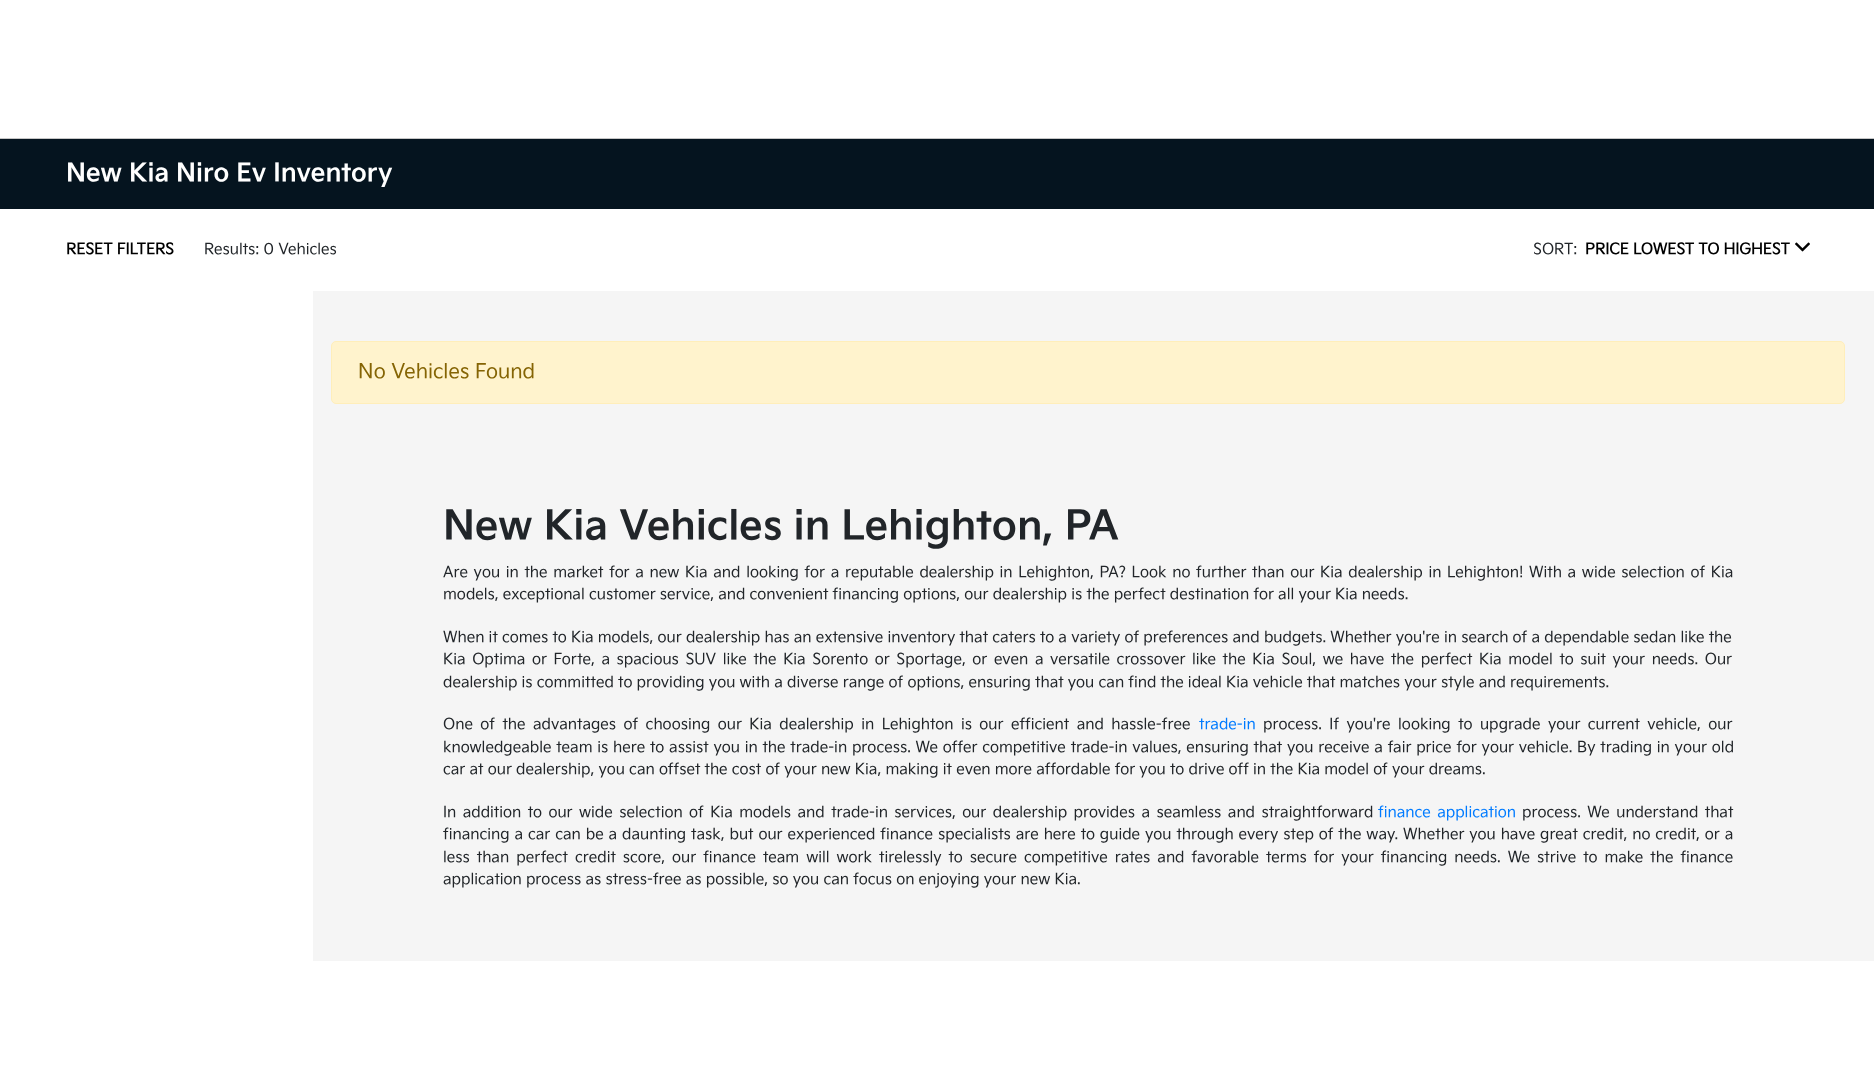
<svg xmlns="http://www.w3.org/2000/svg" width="1874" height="1075">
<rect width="100%" height="100%" fill="#fff"/>
<rect x="313" y="291" width="1561" height="670" fill="#f5f5f5"/>
<rect y="139" width="1874" height="70" fill="#05141f"/>
<rect y="138" width="1874" height="1" fill="#c6c6c6"/>
<text x="66" y="181" style="font-family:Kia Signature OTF;font-size:25px;font-weight:bold;fill:#fff">New Kia Niro Ev Inventory</text>
<text x="66" y="254" style="font-family:'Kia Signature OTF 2';font-size:15px;font-weight:bold;fill:#000">RESET FILTERS</text>
<text x="204" y="254" style="font-family:Kia Signature OTF;font-size:15px;fill:#212529">Results: 0 Vehicles</text>
<text x="1533" y="254" style="font-family:Kia Signature OTF;font-size:15px;fill:#212529">SORT:</text>
<text x="1585" y="254" style="font-family:'Kia Signature OTF 2';font-size:15px;font-weight:bold;fill:#000">PRICE LOWEST TO HIGHEST</text>
<image x="1795" y="242" width="15" height="10" href="media/1.png"/>
<rect x="331.5" y="341.5" width="1513" height="62" rx="4.5" fill="#fff3cd" stroke="#ffeeba"/>
<text x="358" y="378" style="font-family:Kia Signature OTF;font-size:20px;fill:#856404">No Vehicles Found</text>
<text x="443" y="539" style="font-family:Kia Signature OTF;font-size:40px;font-weight:bold;fill:#212529">New Kia Vehicles in Lehighton, PA</text>
<text x="443" y="577" word-spacing="1.5" style="font-family:Kia Signature OTF;font-size:15px;fill:#212529">Are you in the market for a new Kia and looking for a reputable dealership in Lehighton, PA? Look no further than our Kia dealership in Lehighton! With a wide selection of Kia</text>
<text x="443" y="599" style="font-family:Kia Signature OTF;font-size:15px;fill:#212529">models, exceptional customer service, and convenient financing options, our dealership is the perfect destination for all your Kia needs.</text>
<text x="443" y="642" style="font-family:Kia Signature OTF;font-size:15px;fill:#212529">When it comes to Kia models, our dealership has an extensive inventory that caters to a variety of preferences and budgets. Whether you're in search of a dependable sedan like the</text>
<text x="443" y="664" word-spacing="2.4" style="font-family:Kia Signature OTF;font-size:15px;fill:#212529">Kia Optima or Forte, a spacious SUV like the Kia Sorento or Sportage, or even a versatile crossover like the Kia Soul, we have the perfect Kia model to suit your needs. Our</text>
<text x="443" y="687" style="font-family:Kia Signature OTF;font-size:15px;fill:#212529">dealership is committed to providing you with a diverse range of options, ensuring that you can find the ideal Kia vehicle that matches your style and requirements.</text>
<text x="443" y="729" word-spacing="3.25" style="font-family:Kia Signature OTF;font-size:15px;fill:#212529">One of the advantages of choosing our Kia dealership in Lehighton is our efficient and hassle-free</text>
<text x="1199" y="729" style="font-family:Kia Signature OTF;font-size:15px;fill:#007bff">trade-in</text>
<text x="1263" y="729" word-spacing="3.25" style="font-family:Kia Signature OTF;font-size:15px;fill:#212529">process. If you're looking to upgrade your current vehicle, our</text>
<text x="443" y="752" word-spacing="0.6" style="font-family:Kia Signature OTF;font-size:15px;fill:#212529">knowledgeable team is here to assist you in the trade-in process. We offer competitive trade-in values, ensuring that you receive a fair price for your vehicle. By trading in your old</text>
<text x="443" y="774" style="font-family:Kia Signature OTF;font-size:15px;fill:#212529">car at our dealership, you can offset the cost of your new Kia, making it even more affordable for you to drive off in the Kia model of your dreams.</text>
<text x="443" y="817" word-spacing="2.25" style="font-family:Kia Signature OTF;font-size:15px;fill:#212529">In addition to our wide selection of Kia models and trade-in services, our dealership provides a seamless and straightforward</text>
<text x="1378" y="817" word-spacing="2.25" style="font-family:Kia Signature OTF;font-size:15px;fill:#007bff">finance application</text>
<text x="1522" y="817" word-spacing="2.25" style="font-family:Kia Signature OTF;font-size:15px;fill:#212529">process. We understand that</text>
<text x="443" y="839" word-spacing="0.7" style="font-family:Kia Signature OTF;font-size:15px;fill:#212529">financing a car can be a daunting task, but our experienced finance specialists are here to guide you through every step of the way. Whether you have great credit, no credit, or a</text>
<text x="443" y="862" word-spacing="2.8" style="font-family:Kia Signature OTF;font-size:15px;fill:#212529">less than perfect credit score, our finance team will work tirelessly to secure competitive rates and favorable terms for your financing needs. We strive to make the finance</text>
<text x="443" y="884" style="font-family:Kia Signature OTF;font-size:15px;fill:#212529">application process as stress-free as possible, so you can focus on enjoying your new Kia.</text>
</svg>
